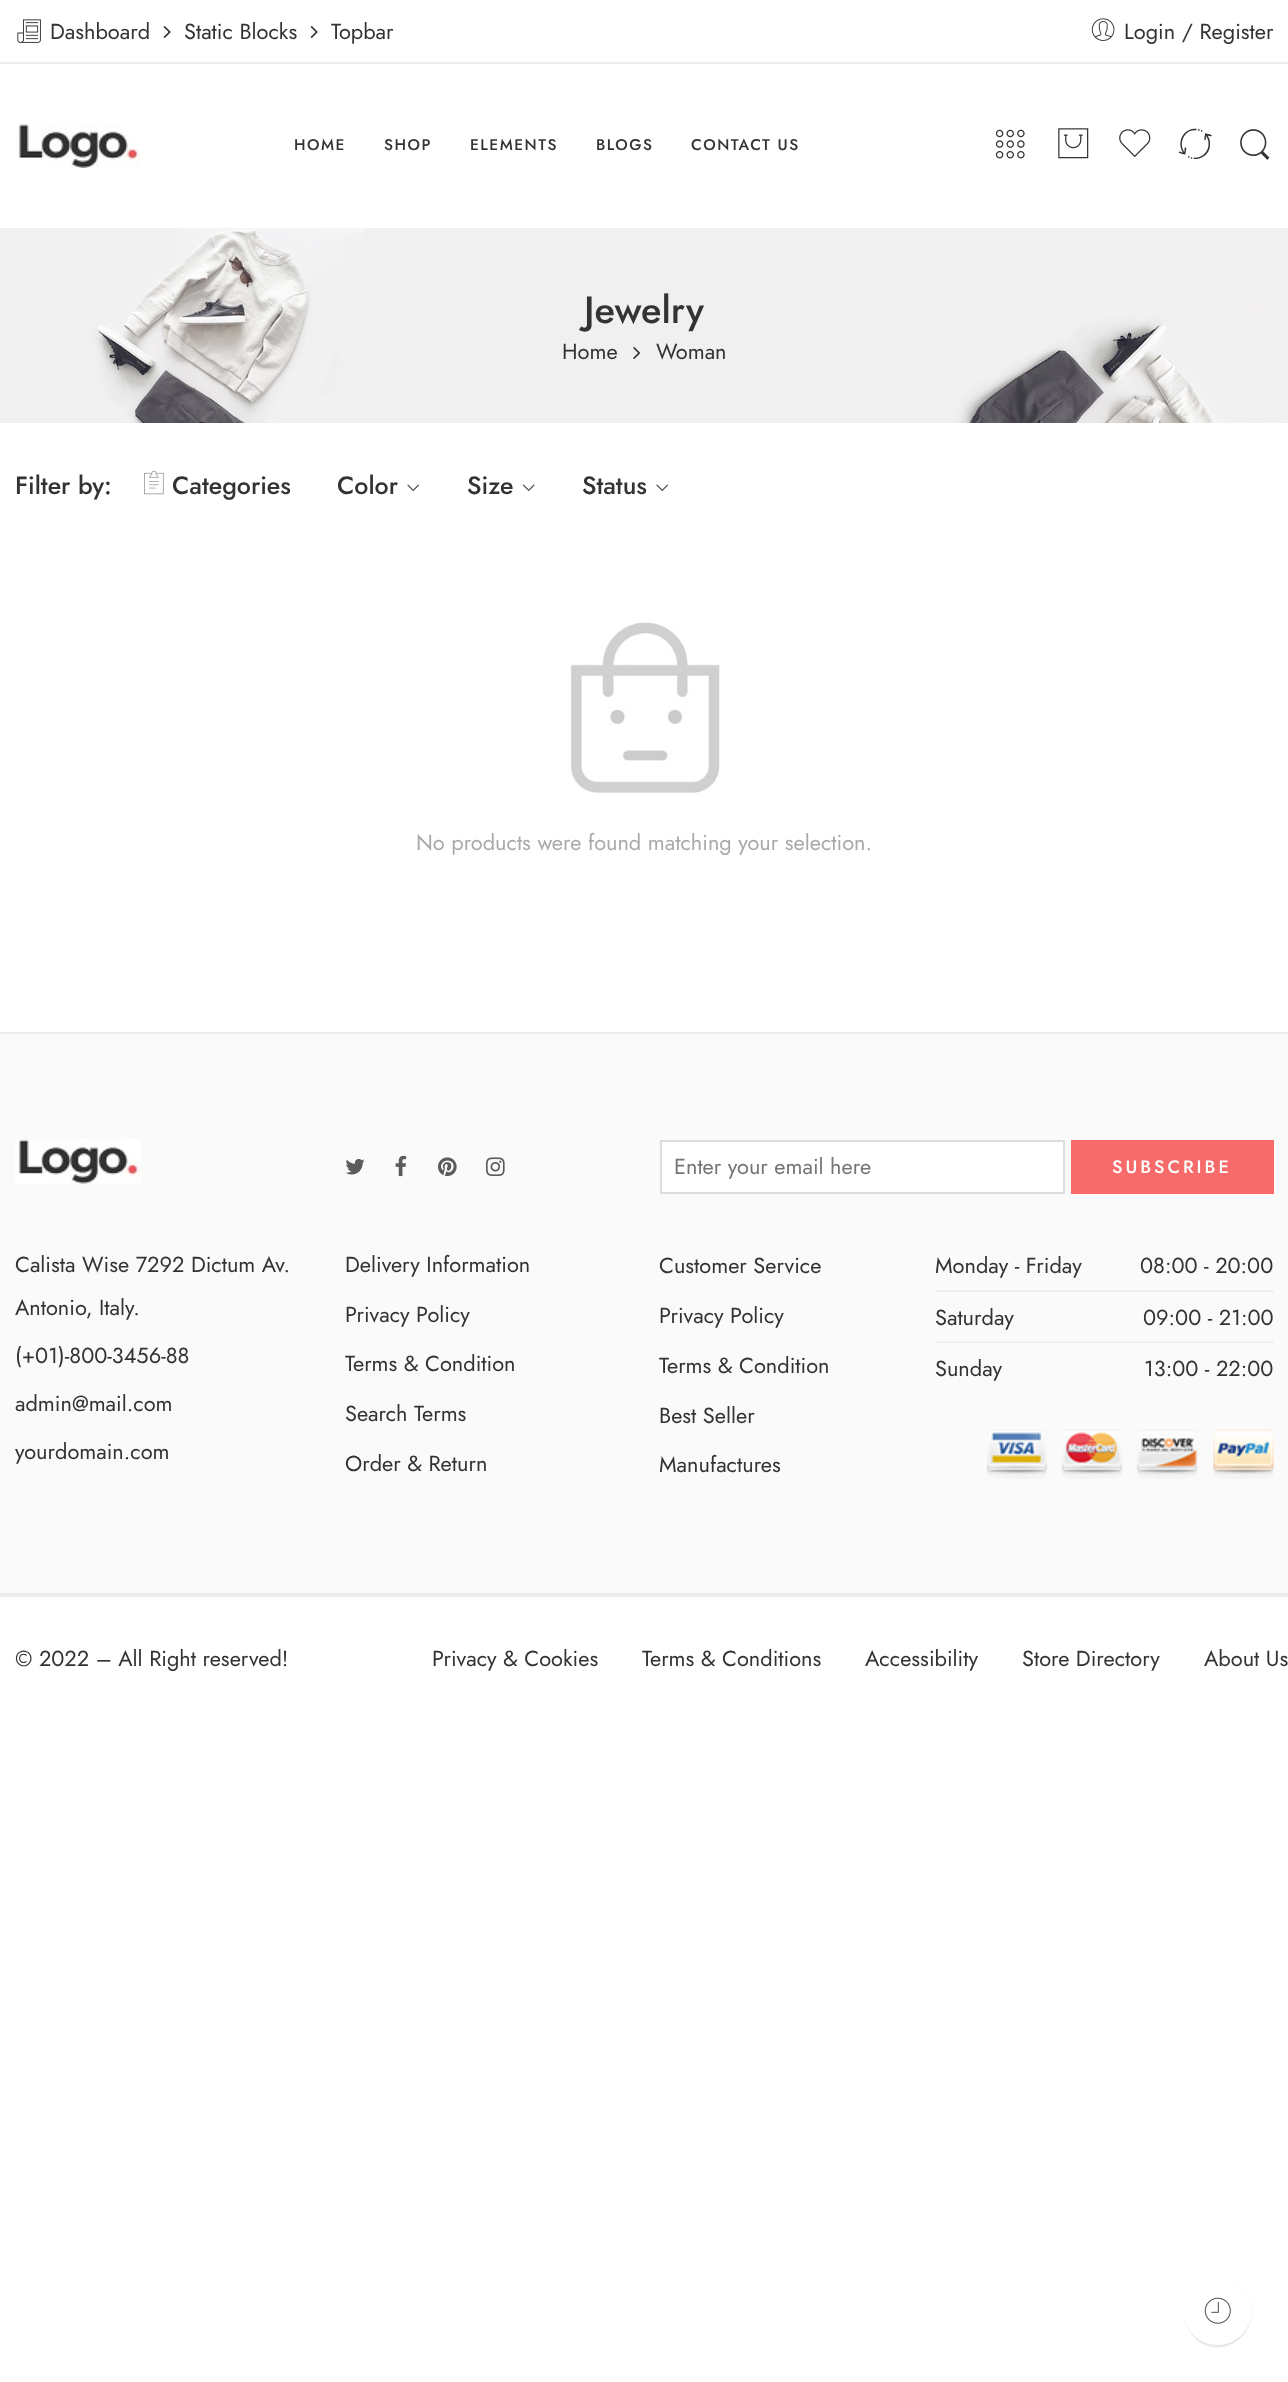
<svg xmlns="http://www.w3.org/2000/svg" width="1288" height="2382">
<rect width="100%" height="100%" fill="#fff"/>
<rect y="62" width="1288" height="2" fill="#ececec"/>
<image x="17" y="19" width="24" height="24" href="media/1.png"/>
<text x="50" y="39" style="font-family:Jost;font-size:21.75px;fill:#333">Dashboard</text>
<image x="163" y="26" width="8" height="12" href="media/2.png"/>
<text x="184" y="39" style="font-family:Jost;font-size:21.75px;fill:#333">Static Blocks</text>
<image x="310" y="26" width="8" height="12" href="media/2.png"/>
<text x="331" y="39" style="font-family:Jost;font-size:21.75px;fill:#333">Topbar</text>
<image x="1091" y="18" width="24" height="23" href="media/3.png"/>
<text x="1124" y="39" style="font-family:Jost;font-size:21.75px;fill:#333">Login / Register</text>
<image x="19" y="124" width="122" height="44" href="media/4.png"/>
<text x="294" y="150" style="font-family:Jost;font-size:15.5px;font-weight:500;letter-spacing:1.5px;fill:#333">HOME</text>
<text x="384" y="150" style="font-family:Jost;font-size:15.5px;font-weight:500;letter-spacing:1.5px;fill:#333">SHOP</text>
<text x="470" y="150" style="font-family:Jost;font-size:15.5px;font-weight:500;letter-spacing:1.5px;fill:#333">ELEMENTS</text>
<text x="596" y="150" style="font-family:Jost;font-size:15.5px;font-weight:500;letter-spacing:1.5px;fill:#333">BLOGS</text>
<text x="691" y="150" style="font-family:Jost;font-size:15.5px;font-weight:500;letter-spacing:1.5px;fill:#333">CONTACT US</text>
<image x="995" y="129" width="30" height="30" href="media/5.png"/>
<image x="1058" y="128" width="31" height="31" href="media/6.png"/>
<image x="1119" y="129" width="32" height="29" href="media/7.png"/>
<text x="1176" y="165" style="font-family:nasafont;font-size:38px;fill:#333">3</text>
<image x="1240" y="129" width="30" height="31" href="media/8.png"/>
<image x="0" y="228" width="1288" height="195" href="media/9.png"/>
<text x="584" y="323" style="font-family:Jost;font-size:38px;font-weight:500;fill:#333">Jewelry</text>
<text x="562" y="359" style="font-family:Jost;font-size:21.75px;fill:#333">Home</text>
<image x="633" y="347" width="8" height="12" href="media/10.png"/>
<text x="656" y="359" style="font-family:Jost;font-size:21.75px;fill:#333">Woman</text>
<text x="15" y="494" style="font-family:Jost;font-size:25px;font-weight:500;fill:#333">Filter by:</text>
<image x="144" y="470" width="20" height="25" href="media/11.png"/>
<text x="172" y="494" style="font-family:Jost;font-size:25px;font-weight:500;fill:#333">Categories</text>
<text x="337" y="494" style="font-family:Jost;font-size:25px;font-weight:500;fill:#333">Color</text>
<image x="407" y="484" width="12" height="7" href="media/12.png"/>
<text x="467" y="494" style="font-family:Jost;font-size:25px;font-weight:500;fill:#333">Size</text>
<image x="522" y="484" width="13" height="7" href="media/13.png"/>
<text x="582" y="494" style="font-family:Jost;font-size:25px;font-weight:500;fill:#333">Status</text>
<image x="656" y="484" width="12" height="7" href="media/12.png"/>
<image x="570" y="622" width="150" height="171" href="media/14.png"/>
<text x="416" y="850" style="font-family:Jost;font-size:21.75px;fill:#aaa">No products were found matching your selection.</text>
<rect y="1034" width="1288" height="559" fill="#fafafa"/>
<rect y="1032" width="1288" height="2" fill="#ececec"/>
<rect y="1593" width="1288" height="4" fill="#ececec"/>
<image x="15" y="1139" width="126" height="45" href="media/15.png"/>
<text x="15" y="1272" style="font-family:Jost;font-size:21.75px;fill:#333">Calista Wise 7292 Dictum Av.</text>
<text x="15" y="1315" style="font-family:Jost;font-size:21.75px;fill:#333">Antonio, Italy.</text>
<text x="15" y="1363" style="font-family:Jost;font-size:21.75px;fill:#333">(+01)-800-3456-88</text>
<text x="15" y="1411" style="font-family:Jost;font-size:21.75px;fill:#333">admin@mail.com</text>
<text x="15" y="1459" style="font-family:Jost;font-size:21.75px;fill:#333">yourdomain.com</text>
<image x="345" y="1159" width="20" height="16" href="media/16.png"/>
<image x="395" y="1155" width="12" height="22" href="media/17.png"/>
<image x="438" y="1157" width="19" height="20" href="media/18.png"/>
<image x="486" y="1157" width="19" height="20" href="media/19.png"/>
<text x="345" y="1272" style="font-family:Jost;font-size:21.75px;fill:#333">Delivery Information</text>
<text x="345" y="1322" style="font-family:Jost;font-size:21.75px;fill:#333">Privacy Policy</text>
<text x="345" y="1371" style="font-family:Jost;font-size:21.75px;fill:#333">Terms &amp; Condition</text>
<text x="345" y="1421" style="font-family:Jost;font-size:21.75px;fill:#333">Search Terms</text>
<text x="345" y="1471" style="font-family:Jost;font-size:21.75px;fill:#333">Order &amp; Return</text>
<rect x="661" y="1141" width="403" height="52" fill="#fff" stroke="#dedede" stroke-width="2"/>
<text x="674" y="1174" style="font-family:Jost;font-size:21.75px;fill:#757575">Enter your email here</text>
<rect x="1071" y="1140" width="203" height="54" fill="#f76b6a"/>
<text x="1112" y="1173" style="font-family:Jost;font-size:18px;font-weight:500;letter-spacing:3px;fill:#fff">SUBSCRIBE</text>
<text x="659" y="1273" style="font-family:Jost;font-size:21.75px;fill:#333">Customer Service</text>
<text x="659" y="1323" style="font-family:Jost;font-size:21.75px;fill:#333">Privacy Policy</text>
<text x="659" y="1373" style="font-family:Jost;font-size:21.75px;fill:#333">Terms &amp; Condition</text>
<text x="659" y="1423" style="font-family:Jost;font-size:21.75px;fill:#333">Best Seller</text>
<text x="659" y="1472" style="font-family:Jost;font-size:21.75px;fill:#333">Manufactures</text>
<rect x="935" y="1290" width="339" height="2" fill="#efefef"/>
<text x="935" y="1273" style="font-family:Jost;font-size:21.75px;fill:#333">Monday - Friday</text>
<text x="1140" y="1273" style="font-family:Jost;font-size:21.75px;fill:#333">08:00 - 20:00</text>
<rect x="935" y="1341" width="339" height="2" fill="#efefef"/>
<text x="935" y="1325" style="font-family:Jost;font-size:21.75px;fill:#333">Saturday</text>
<text x="1143" y="1325" style="font-family:Jost;font-size:21.75px;fill:#333">09:00 - 21:00</text>
<text x="935" y="1376" style="font-family:Jost;font-size:21.75px;fill:#333">Sunday</text>
<text x="1144" y="1376" style="font-family:Jost;font-size:21.75px;fill:#333">13:00 - 22:00</text>
<image x="987" y="1429" width="287" height="50" href="media/20.png"/>
<text x="15" y="1666" style="font-family:Jost;font-size:21.75px;fill:#333">© 2022 – All Right reserved!</text>
<text x="432" y="1666" style="font-family:Jost;font-size:21.75px;fill:#333">Privacy &amp; Cookies</text>
<text x="642" y="1666" style="font-family:Jost;font-size:21.75px;fill:#333">Terms &amp; Conditions</text>
<text x="865" y="1666" style="font-family:Jost;font-size:21.75px;fill:#333">Accessibility</text>
<text x="1022" y="1666" style="font-family:Jost;font-size:21.75px;fill:#333">Store Directory</text>
<text x="1204" y="1666" style="font-family:Jost;font-size:21.75px;fill:#333">About Us</text>
<circle cx="1218.5" cy="2311.5" r="34.1" fill="none" stroke="#f7f7f7" stroke-width="0.8"/>
<path d="M1184 2317c1 6 3 12 7 17c20 27 61 11 60-22c-2 40-59 44-67 5z" fill="#00000014"/>
<rect x="1184" y="2277" width="67" height="68" rx="33.5" fill="#fff"/>
<image x="1204" y="2297" width="27" height="27" href="media/21.png"/>
</svg>
